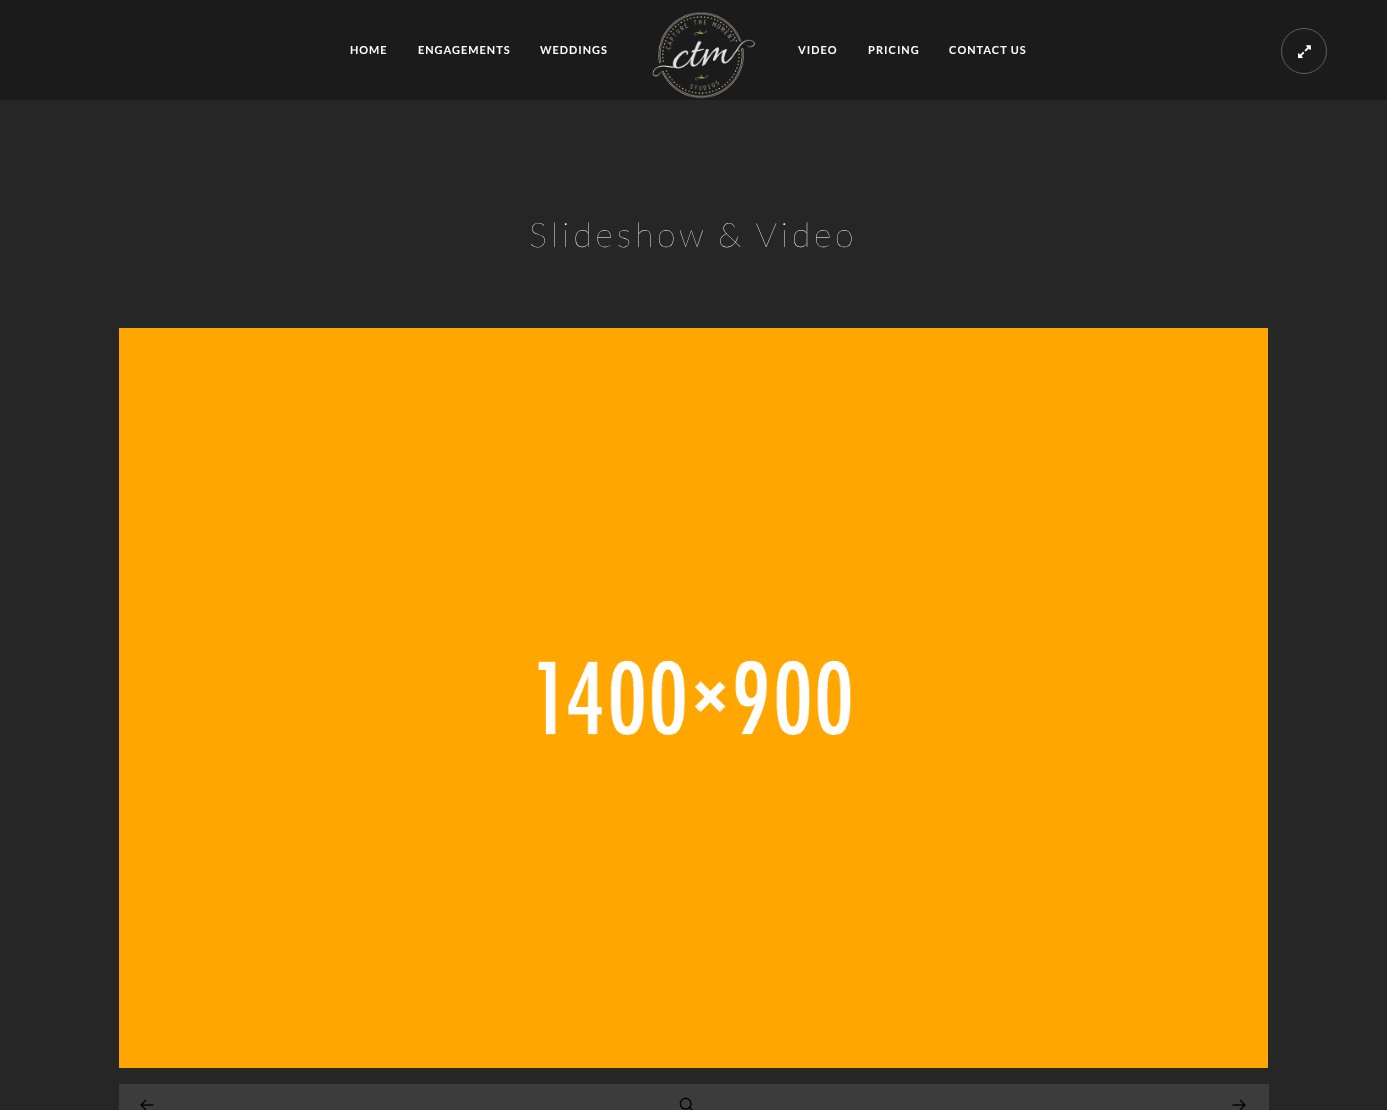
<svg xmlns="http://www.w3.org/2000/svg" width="1387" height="1110">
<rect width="100%" height="100%" fill="#262626"/>
<rect width="1387" height="100" fill="#1b1b1b"/>
<text x="350" y="54" style="font-family:Lato;font-size:11px;font-weight:bold;letter-spacing:1px;fill:#fff">HOME</text>
<text x="418" y="54" style="font-family:Lato;font-size:11px;font-weight:bold;letter-spacing:1px;fill:#fff">ENGAGEMENTS</text>
<text x="540" y="54" style="font-family:Lato;font-size:11px;font-weight:bold;letter-spacing:1px;fill:#fff">WEDDINGS</text>
<image x="652" y="12" width="103" height="87" href="media/1.png"/>
<text x="798" y="54" style="font-family:Lato;font-size:11px;font-weight:bold;letter-spacing:1px;fill:#fff">VIDEO</text>
<text x="868" y="54" style="font-family:Lato;font-size:11px;font-weight:bold;letter-spacing:1px;fill:#fff">PRICING</text>
<text x="949" y="54" style="font-family:Lato;font-size:11px;font-weight:bold;letter-spacing:1px;fill:#fff">CONTACT US</text>
<circle cx="1304" cy="51" r="22.5" fill="none" stroke="#5f5f5f"/>
<image x="1298" y="45" width="13" height="14" href="media/2.png"/>
<text x="529" y="247" style="font-family:Lato;font-size:34px;font-weight:100;letter-spacing:4px;fill:#fff">Slideshow &amp; Video</text>
<image x="119" y="328" width="1149" height="740" href="media/3.png"/>
<rect x="119" y="1084" width="1150" height="26" fill="#3c3c3c"/>
<image x="140" y="1099" width="14" height="11" href="media/4.png"/>
<image x="679" y="1097" width="14" height="13" href="media/5.png"/>
<image x="1232" y="1099" width="14" height="11" href="media/6.png"/>
</svg>
